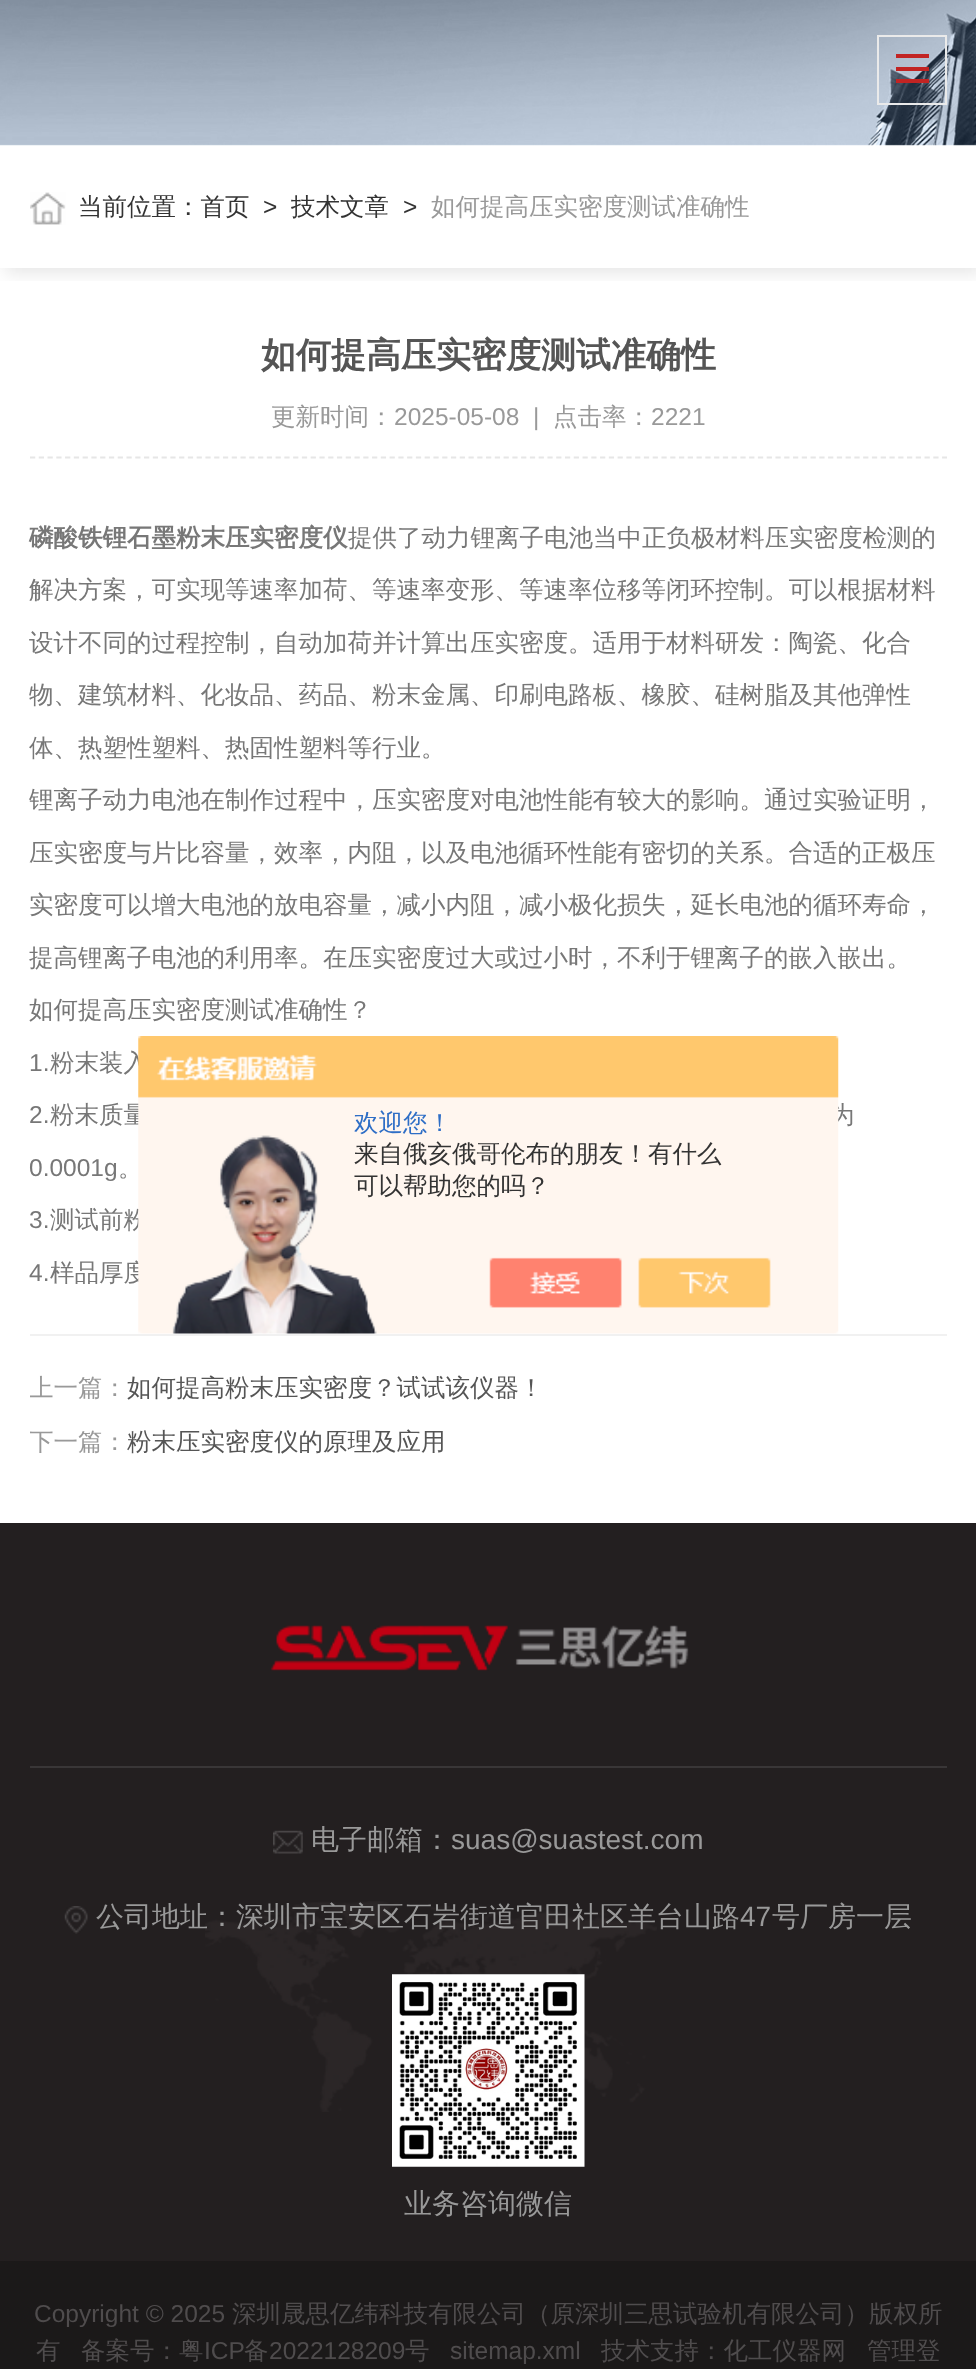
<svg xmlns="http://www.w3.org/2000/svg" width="976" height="2369">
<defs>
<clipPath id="clip1"><rect x="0" y="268" width="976" height="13"/></clipPath>
<clipPath id="clip2"><rect x="30" y="1370" width="917" height="37"/></clipPath>
<clipPath id="clip3"><rect x="30" y="1425" width="917" height="36"/></clipPath>
</defs>
<rect width="100%" height="100%" fill="#fff"/>
<g clip-path="url(#clip1)">
<rect x="5" y="151" width="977" height="122" fill="#0000001a" filter="blur(9px)"/>
</g>
<image x="0" y="0" width="976" height="146" href="media/1.png"/>
<rect x="878" y="36" width="68" height="68" fill="none" stroke="#eaeaea" stroke-width="2"/>
<rect x="896" y="54" width="33" height="4" fill="#c22423"/>
<rect x="896" y="67" width="33" height="4" fill="#c22423"/>
<rect x="896" y="79" width="33" height="4" fill="#c22423"/>
<image x="30" y="192" width="36" height="33" href="media/2.png"/>
<text x="78" y="215" style="font-family:WenQuanYi Zen Hei;font-size:24.5px;font-weight:500;fill:#333">当前位置：首页</text>
<text x="263" y="215" style="font-family:Liberation Sans;font-size:24.5px;fill:#333">&gt;</text>
<text x="291" y="215" style="font-family:WenQuanYi Zen Hei;font-size:24.5px;font-weight:500;fill:#333">技术文章</text>
<text x="403" y="215" style="font-family:Liberation Sans;font-size:24.5px;fill:#333">&gt;</text>
<text x="431" y="215" style="font-family:WenQuanYi Zen Hei;font-size:24.5px;font-weight:500;fill:#999">如何提高压实密度测试准确性</text>
<text x="261" y="367" style="font-family:WenQuanYi Zen Hei;font-size:35px;font-weight:bold;fill:#555">如何提高压实密度测试准确性</text>
<path d="M30 457.5h917" fill="none" stroke="#e6e6e6" stroke-width="1.8" stroke-dasharray="5.25 3.52"/>
<text x="271" y="425" style="font-family:WenQuanYi Zen Hei;font-size:24.5px;font-weight:500;fill:#999">更新时间：</text>
<text x="394" y="425" style="font-family:Liberation Sans;font-size:24.5px;fill:#999" xml:space="preserve">2025-05-08  |</text>
<text x="553" y="425" style="font-family:WenQuanYi Zen Hei;font-size:24.5px;font-weight:500;fill:#999">点击率：</text>
<text x="651" y="425" style="font-family:Liberation Sans;font-size:24.5px;fill:#999">2221</text>
<text x="29" y="546" style="font-family:WenQuanYi Zen Hei;font-size:24.5px;font-weight:bold;fill:#777">磷酸铁锂石墨粉末压实密度仪</text>
<text x="348" y="546" style="font-family:WenQuanYi Zen Hei;font-size:24.5px;font-weight:500;fill:#777">提供了动力锂离子电池当中正负极材料压实密度检测的</text>
<text x="29" y="598" style="font-family:WenQuanYi Zen Hei;font-size:24.5px;font-weight:500;fill:#777">解决方案，可实现等速率加荷、等速率变形、等速率位移等闭环控制。可以根据材料</text>
<text x="29" y="651" style="font-family:WenQuanYi Zen Hei;font-size:24.5px;font-weight:500;fill:#777">设计不同的过程控制，自动加荷并计算出压实密度。适用于材料研发：陶瓷、化合</text>
<text x="29" y="703" style="font-family:WenQuanYi Zen Hei;font-size:24.5px;font-weight:500;fill:#777">物、建筑材料、化妆品、药品、粉末金属、印刷电路板、橡胶、硅树脂及其他弹性</text>
<text x="29" y="756" style="font-family:WenQuanYi Zen Hei;font-size:24.5px;font-weight:500;fill:#777">体、热塑性塑料、热固性塑料等行业。</text>
<text x="29" y="808" style="font-family:WenQuanYi Zen Hei;font-size:24.5px;font-weight:500;fill:#777">锂离子动力电池在制作过程中，压实密度对电池性能有较大的影响。通过实验证明，</text>
<text x="29" y="861" style="font-family:WenQuanYi Zen Hei;font-size:24.5px;font-weight:500;fill:#777">压实密度与片比容量，效率，内阻，以及电池循环性能有密切的关系。合适的正极压</text>
<text x="29" y="913" style="font-family:WenQuanYi Zen Hei;font-size:24.5px;font-weight:500;fill:#777">实密度可以增大电池的放电容量，减小内阻，减小极化损失，延长电池的循环寿命，</text>
<text x="29" y="966" style="font-family:WenQuanYi Zen Hei;font-size:24.5px;font-weight:500;fill:#777">提高锂离子电池的利用率。在压实密度过大或过小时，不利于锂离子的嵌入嵌出。</text>
<text x="29" y="1018" style="font-family:WenQuanYi Zen Hei;font-size:24.5px;font-weight:500;fill:#777">如何提高压实密度测试准确性？</text>
<text x="29" y="1071" style="font-family:Liberation Sans;font-size:24.5px;fill:#777">1.</text>
<text x="50" y="1071" style="font-family:WenQuanYi Zen Hei;font-size:24.5px;font-weight:500;fill:#777">粉末装入</text>
<text x="29" y="1123" style="font-family:Liberation Sans;font-size:24.5px;fill:#777">2.</text>
<text x="50" y="1123" style="font-family:WenQuanYi Zen Hei;font-size:24.5px;font-weight:500;fill:#777">粉末质量</text>
<text x="830" y="1123" word-spacing="-1" style="font-family:WenQuanYi Zen Hei;font-size:24.5px;font-weight:500;fill:#777">为</text>
<text x="29" y="1176" style="font-family:Liberation Sans;font-size:24.5px;fill:#777">0.0001g</text>
<text x="118" y="1176" style="font-family:WenQuanYi Zen Hei;font-size:24.5px;font-weight:500;fill:#777">。</text>
<text x="29" y="1228" style="font-family:Liberation Sans;font-size:24.5px;fill:#777">3.</text>
<text x="50" y="1228" style="font-family:WenQuanYi Zen Hei;font-size:24.5px;font-weight:500;fill:#777">测试前粉</text>
<text x="29" y="1281" style="font-family:Liberation Sans;font-size:24.5px;fill:#777">4.</text>
<text x="50" y="1281" style="font-family:WenQuanYi Zen Hei;font-size:24.5px;font-weight:500;fill:#777">样品厚度</text>
<rect x="30" y="1334" width="917" height="2" fill="#f1f1f1"/>
<g clip-path="url(#clip2)">
<text x="29" y="1396" style="font-family:WenQuanYi Zen Hei;font-size:24.5px;font-weight:500;fill:#999">上一篇：</text>
</g>
<text x="127" y="1396" style="font-family:WenQuanYi Zen Hei;font-size:24.5px;font-weight:500;fill:#555">如何提高粉末压实密度？试试该仪器！</text>
<g clip-path="url(#clip3)">
<text x="29" y="1450" style="font-family:WenQuanYi Zen Hei;font-size:24.5px;font-weight:500;fill:#999">下一篇：</text>
</g>
<text x="127" y="1450" style="font-family:WenQuanYi Zen Hei;font-size:24.5px;font-weight:500;fill:#555">粉末压实密度仪的原理及应用</text>
<image x="138" y="1036" width="701" height="298" href="media/3.png"/>
<text x="354" y="1131" style="font-family:WenQuanYi Zen Hei;font-size:24.5px;font-weight:500;fill:#2e6ec6">欢迎您！</text>
<text x="354" y="1162" style="font-family:WenQuanYi Zen Hei;font-size:24.5px;font-weight:500;fill:#333">来自俄亥俄哥伦布的朋友！有什么</text>
<text x="354" y="1194" style="font-family:WenQuanYi Zen Hei;font-size:24.5px;font-weight:500;fill:#333">可以帮助您的吗？</text>
<rect y="1523" width="976" height="738" fill="#231f20"/>
<rect x="30" y="1766" width="917" height="2" fill="#393637"/>
<image x="270" y="1625" width="419" height="46" href="media/4.png"/>
<image x="205" y="1901" width="452" height="211" href="media/5.png"/>
<image x="273" y="1830" width="30" height="24" href="media/6.png"/>
<text x="311" y="1849" style="font-family:WenQuanYi Zen Hei;font-size:28px;font-weight:500;fill:#999">电子邮箱：</text>
<text x="451" y="1849" style="font-family:Liberation Sans;font-size:28px;fill:#999">suas@suastest.com</text>
<image x="64" y="1906" width="24" height="28" href="media/7.png"/>
<text x="96" y="1926" style="font-family:WenQuanYi Zen Hei;font-size:28px;font-weight:500;fill:#999">公司地址：深圳市宝安区石岩街道官田社区羊台山路</text>
<text x="740" y="1926" style="font-family:Liberation Sans;font-size:28px;fill:#999">47</text>
<text x="772" y="1926" style="font-family:WenQuanYi Zen Hei;font-size:28px;font-weight:500;fill:#999">号厂房一层</text>
<image x="392" y="1974" width="193" height="193" href="media/8.png"/>
<text x="404" y="2213" style="font-family:WenQuanYi Zen Hei;font-size:28px;font-weight:500;fill:#999">业务咨询微信</text>
<rect y="2261" width="976" height="108" fill="#1b1919"/>
<text x="34" y="2322" style="font-family:Liberation Sans;font-size:24.5px;fill:#4f4c4d">Copyright © 2025</text>
<text x="232" y="2322" style="font-family:WenQuanYi Zen Hei;font-size:24.5px;font-weight:500;fill:#4f4c4d">深圳晟思亿纬科技有限公司（原深圳三思试验机有限公司）版权所</text>
<text x="36" y="2359" style="font-family:WenQuanYi Zen Hei;font-size:24.5px;font-weight:500;fill:#4f4c4d">有</text>
<text x="81" y="2359" style="font-family:WenQuanYi Zen Hei;font-size:24.5px;font-weight:500;fill:#4f4c4d">备案号：粤</text>
<text x="204" y="2359" style="font-family:Liberation Sans;font-size:24.5px;fill:#4f4c4d">ICP</text>
<text x="244" y="2359" style="font-family:WenQuanYi Zen Hei;font-size:24.5px;font-weight:500;fill:#4f4c4d">备</text>
<text x="269" y="2359" style="font-family:Liberation Sans;font-size:24.5px;fill:#4f4c4d">2022128209</text>
<text x="405" y="2359" style="font-family:WenQuanYi Zen Hei;font-size:24.5px;font-weight:500;fill:#4f4c4d">号</text>
<text x="450" y="2359" style="font-family:Liberation Sans;font-size:24.5px;fill:#4f4c4d">sitemap.xml</text>
<text x="601" y="2359" style="font-family:WenQuanYi Zen Hei;font-size:24.5px;font-weight:500;fill:#4f4c4d">技术支持：化工仪器网</text>
<text x="867" y="2359" style="font-family:WenQuanYi Zen Hei;font-size:24.5px;font-weight:500;fill:#4f4c4d">管理登</text>
</svg>
